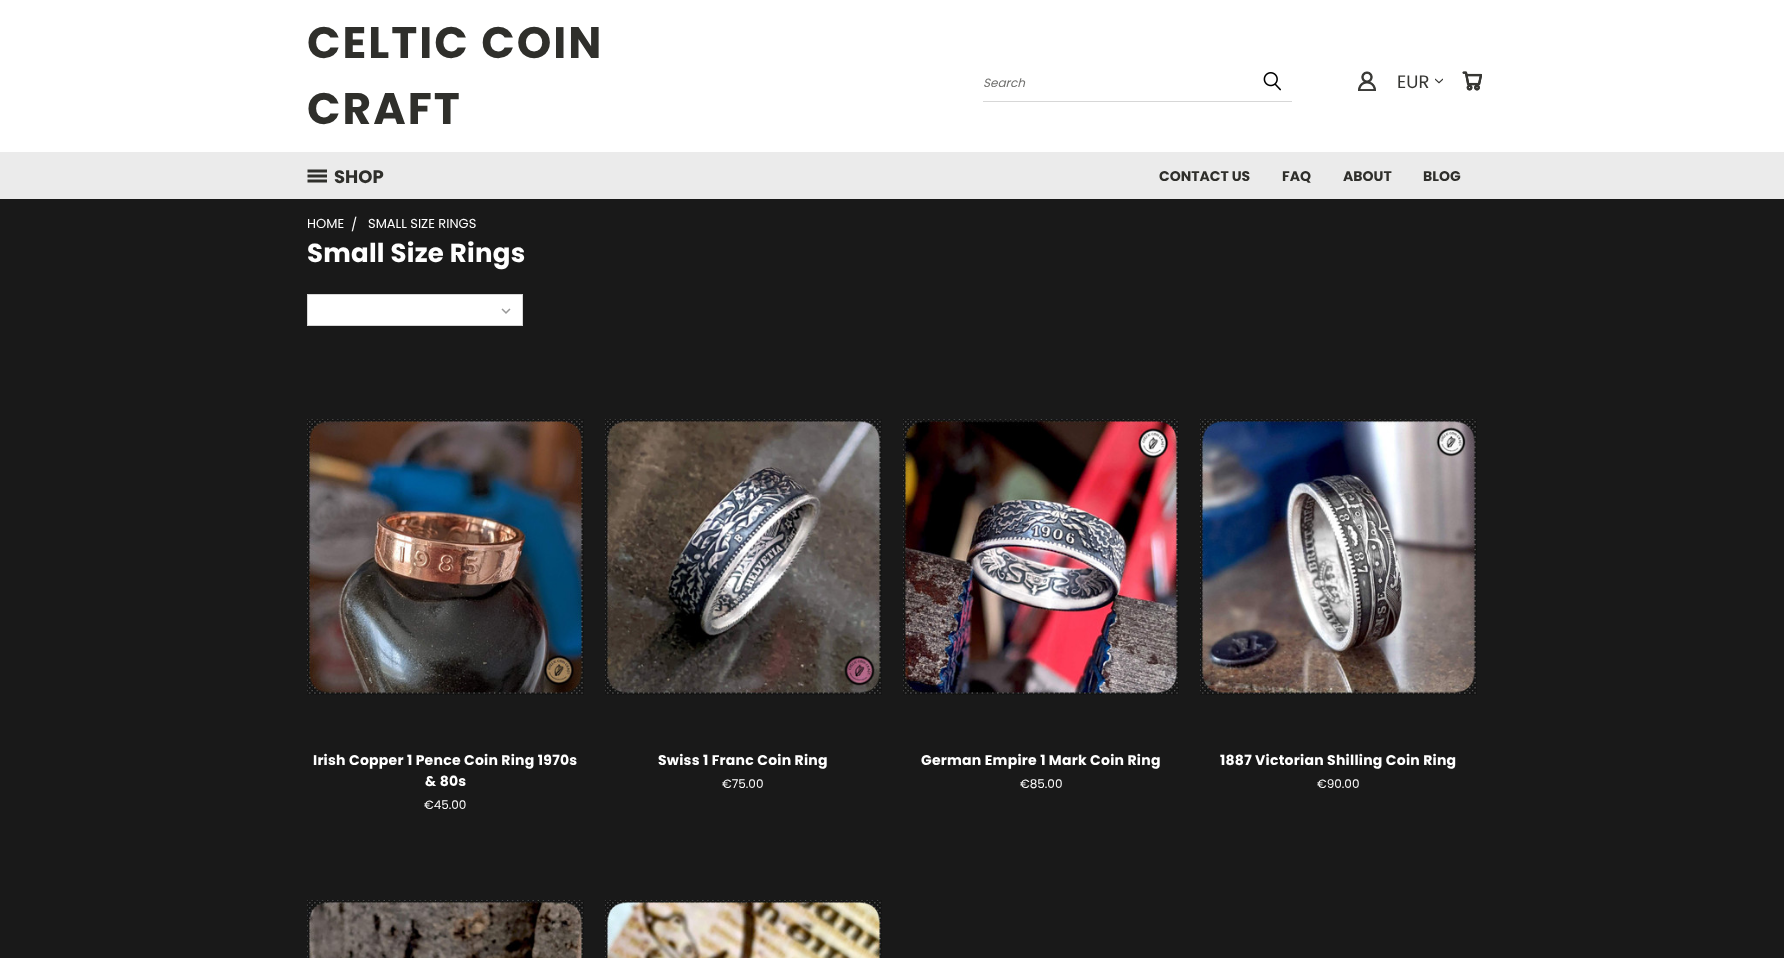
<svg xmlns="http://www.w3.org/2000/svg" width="1784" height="958">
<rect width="100%" height="100%" fill="#191919"/>
<rect width="1784" height="152" fill="#fff"/>
<text x="307" y="58" style="font-family:Poppins;font-size:44px;font-weight:bold;letter-spacing:2px;fill:#2f2f2b">CELTIC COIN</text>
<text x="307" y="124" style="font-family:Poppins;font-size:44px;font-weight:bold;letter-spacing:2px;fill:#2f2f2b">CRAFT</text>
<rect x="983" y="101" width="309" height="1" fill="#d7d7d7"/>
<text x="983" y="87" style="font-family:Poppins;font-size:12px;font-style:italic;fill:#70706e">Search</text>
<image x="1263" y="72" width="18" height="19" href="media/1.png"/>
<image x="1358" y="71" width="18" height="20" href="media/2.png"/>
<text x="1397" y="88" style="font-family:Poppins;font-size:18px;fill:#363633">EUR</text>
<image x="1435" y="78" width="8" height="6" href="media/3.png"/>
<image x="1462" y="71" width="20" height="20" href="media/4.png"/>
<rect y="152" width="1784" height="47" fill="#ebebeb"/>
<image x="307" y="169" width="20" height="14" href="media/5.png"/>
<text x="334" y="183" style="font-family:Poppins;font-size:18px;font-weight:bold;fill:#2f2f2b">SHOP</text>
<text x="1159" y="181" style="font-family:Poppins;font-size:14px;font-weight:bold;fill:#2f2f2b">CONTACT US</text>
<text x="1282" y="181" style="font-family:Poppins;font-size:14px;font-weight:bold;fill:#2f2f2b">FAQ</text>
<text x="1343" y="181" style="font-family:Poppins;font-size:14px;font-weight:bold;fill:#2f2f2b">ABOUT</text>
<text x="1423" y="181" style="font-family:Poppins;font-size:14px;font-weight:bold;fill:#2f2f2b">BLOG</text>
<text x="307" y="228" style="font-family:Poppins;font-size:13px;fill:#fff">HOME</text>
<text x="351" y="229" style="font-family:Poppins;font-size:13px;fill:#fff">/</text>
<text x="368" y="228" style="font-family:Poppins;font-size:13px;fill:#fff">SMALL SIZE RINGS</text>
<text x="307" y="262" style="font-family:Poppins;font-size:26px;font-weight:bold;letter-spacing:0.25px;fill:#fff">Small Size Rings</text>
<rect x="307.5" y="294.5" width="215" height="31" fill="#fff" stroke="#d7d7d7"/>
<image x="501" y="308" width="10" height="6" href="media/6.png"/>
<image x="307" y="419" width="277" height="276" href="media/7.png"/>
<text x="313" y="765" style="font-family:Poppins;font-size:14px;font-weight:bold;letter-spacing:0.25px;fill:#fff">Irish Copper 1 Pence Coin Ring 1970s</text>
<text x="425" y="786" style="font-family:Poppins;font-size:14px;font-weight:bold;letter-spacing:0.25px;fill:#fff">&amp; 80s</text>
<text x="424" y="809" style="font-family:Poppins;font-size:12px;fill:#fff">€45.00</text>
<image x="605" y="419" width="277" height="276" href="media/8.png"/>
<text x="658" y="765" style="font-family:Poppins;font-size:14px;font-weight:bold;letter-spacing:0.25px;fill:#fff">Swiss 1 Franc Coin Ring</text>
<text x="722" y="788" style="font-family:Poppins;font-size:12px;fill:#fff">€75.00</text>
<image x="903" y="419" width="276" height="276" href="media/9.png"/>
<text x="921" y="765" style="font-family:Poppins;font-size:14px;font-weight:bold;letter-spacing:0.25px;fill:#fff">German Empire 1 Mark Coin Ring</text>
<text x="1020" y="788" style="font-family:Poppins;font-size:12px;fill:#fff">€85.00</text>
<image x="1200" y="419" width="277" height="276" href="media/10.png"/>
<text x="1220" y="765" style="font-family:Poppins;font-size:14px;font-weight:bold;letter-spacing:0.25px;fill:#fff">1887 Victorian Shilling Coin Ring</text>
<text x="1317" y="788" style="font-family:Poppins;font-size:12px;fill:#fff">€90.00</text>
<image x="307" y="900" width="277" height="58" href="media/11.png"/>
<image x="605" y="900" width="277" height="58" href="media/12.png"/>
</svg>
